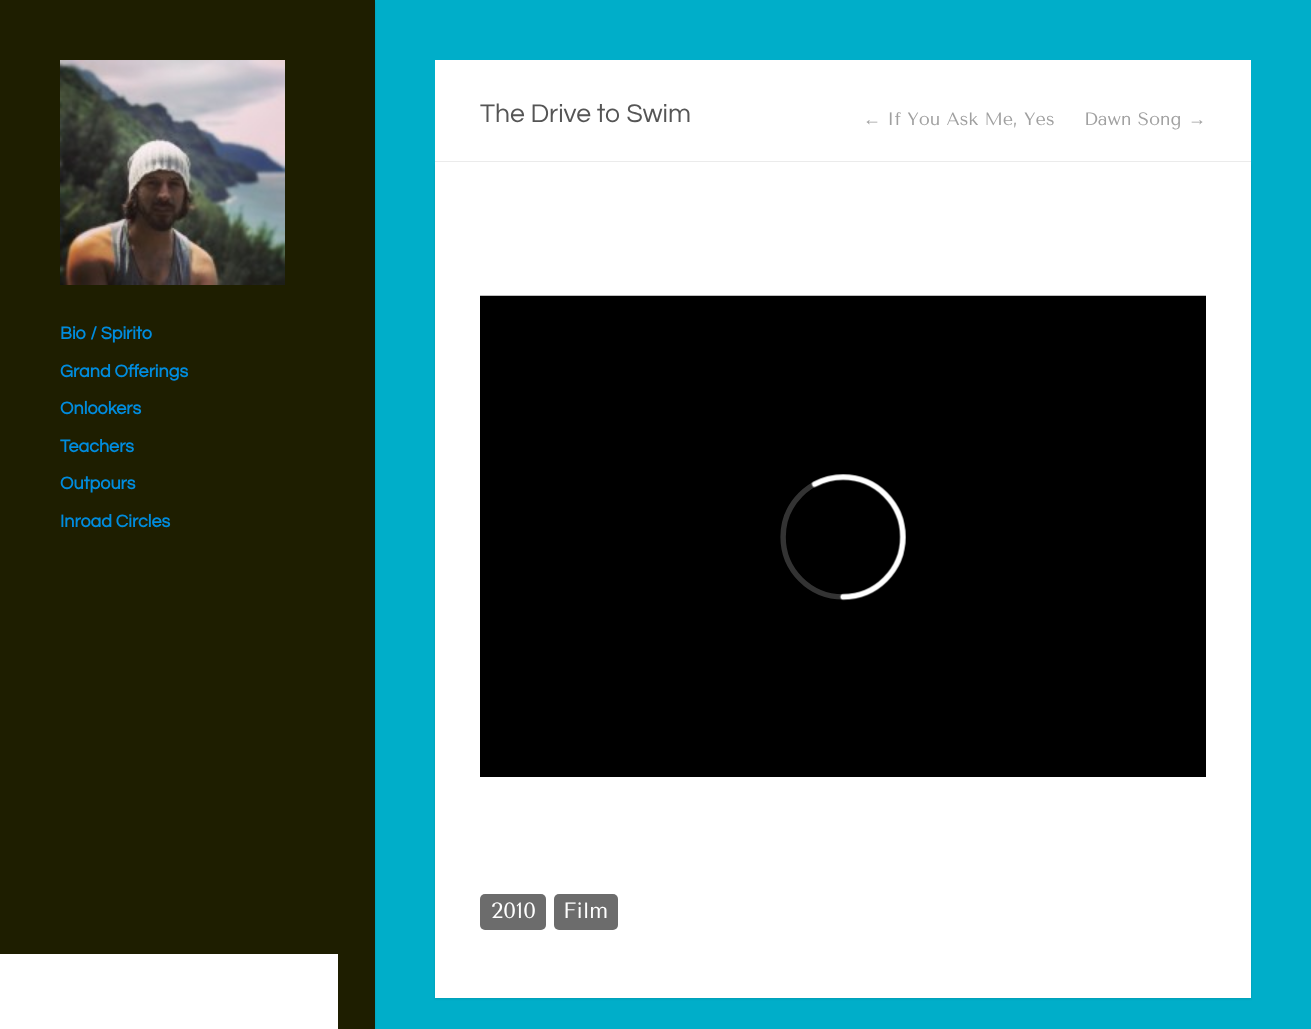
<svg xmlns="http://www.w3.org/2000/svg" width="1311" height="1029">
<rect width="100%" height="100%" fill="#00aec9"/>
<rect y="2" width="375" height="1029" fill="#0000001a" filter="blur(1px)"/>
<rect width="375" height="1029" fill="#1e1e00"/>
<image x="60" y="60" width="225" height="225" href="media/1.png"/>
<text x="60" y="339" style="font-family:Questrial;font-size:18px;font-weight:bold;fill:#008cdd">Bio / Spirito</text>
<text x="60" y="377" style="font-family:Questrial;font-size:18px;font-weight:bold;fill:#008cdd">Grand Offerings</text>
<text x="60" y="414" style="font-family:Questrial;font-size:18px;font-weight:bold;fill:#008cdd">Onlookers</text>
<text x="60" y="452" style="font-family:Questrial;font-size:18px;font-weight:bold;fill:#008cdd">Teachers</text>
<text x="60" y="489" style="font-family:Questrial;font-size:18px;font-weight:bold;fill:#008cdd">Outpours</text>
<text x="60" y="527" style="font-family:Questrial;font-size:18px;font-weight:bold;fill:#008cdd">Inroad Circles</text>
<rect x="435" y="60" width="816" height="101" fill="#fff"/>
<rect x="435" y="161" width="816" height="1" fill="#ebebeb"/>
<text x="480" y="122" style="font-family:Questrial;font-size:26.5px;fill:#555">The Drive to Swim</text>
<text x="863" y="125" style="font-family:Liberation Serif;font-size:18px;fill:#a0a0a0">←</text>
<text x="887" y="125" style="font-family:Tenor Sans;font-size:18px;fill:#a0a0a0">If You Ask Me, Yes</text>
<text x="1084" y="125" style="font-family:Tenor Sans;font-size:18px;fill:#a0a0a0">Dawn Song</text>
<text x="1188" y="125" style="font-family:Liberation Serif;font-size:18px;fill:#a0a0a0">→</text>
<rect x="435" y="164" width="816" height="835" fill="#0000001a" filter="blur(1px)"/>
<rect x="435" y="162" width="816" height="836" fill="#fff"/>
<image x="480" y="295" width="726" height="482" href="media/2.png"/>
<rect x="480" y="894" width="66" height="36" rx="5" fill="#6c6c6c"/>
<text x="491" y="918" style="font-family:Tenor Sans;font-size:22px;fill:#fff">2010</text>
<rect x="554" y="894" width="64" height="36" rx="5" fill="#6c6c6c"/>
<text x="563" y="918" style="font-family:Tenor Sans;font-size:22px;fill:#fff">Film</text>
<rect y="954" width="338" height="75" fill="#fff"/>
</svg>
